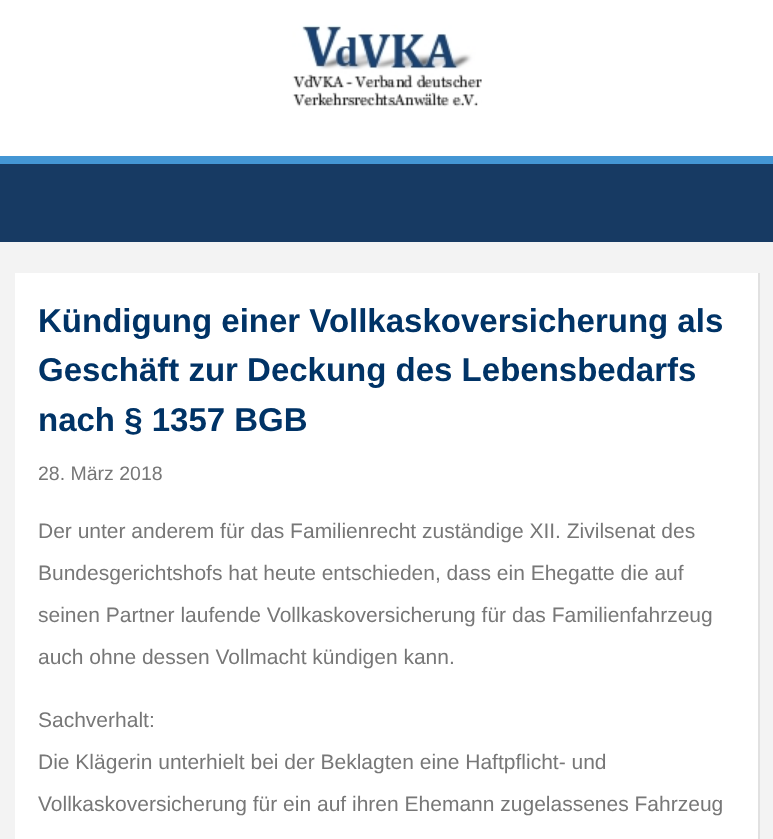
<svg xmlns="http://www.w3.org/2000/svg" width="773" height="839">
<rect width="100%" height="100%" fill="#f3f3f3"/>
<rect width="773" height="156" fill="#fff"/>
<image x="292" y="25" width="190" height="82" href="media/1.png"/>
<rect y="164" width="773" height="78" fill="#173a63"/>
<rect y="156" width="773" height="8" fill="#4496d4"/>
<rect x="15" y="273" width="743" height="566" fill="#fff"/>
<rect x="758" y="273" width="2" height="566" fill="#e1e1e1"/>
<text x="38" y="332" style="font-family:Liberation Sans;font-size:33px;font-weight:bold;fill:#036">Kündigung einer Vollkaskoversicherung als</text>
<text x="38" y="381" style="font-family:Liberation Sans;font-size:33px;font-weight:bold;fill:#036">Geschäft zur Deckung des Lebensbedarfs</text>
<text x="38" y="431" style="font-family:Liberation Sans;font-size:33px;font-weight:bold;fill:#036">nach § 1357 BGB</text>
<text x="38" y="480" style="font-family:Liberation Sans;font-size:19.5px;fill:#777">28. März 2018</text>
<text x="38" y="538" style="font-family:Liberation Sans;font-size:21px;fill:#777">Der unter anderem für das Familienrecht zuständige XII. Zivilsenat des</text>
<text x="38" y="580" style="font-family:Liberation Sans;font-size:21px;fill:#777">Bundesgerichtshofs hat heute entschieden, dass ein Ehegatte die auf</text>
<text x="38" y="622" style="font-family:Liberation Sans;font-size:21px;fill:#777">seinen Partner laufende Vollkaskoversicherung für das Familienfahrzeug</text>
<text x="38" y="664" style="font-family:Liberation Sans;font-size:21px;fill:#777">auch ohne dessen Vollmacht kündigen kann.</text>
<text x="38" y="727" style="font-family:Liberation Sans;font-size:21px;fill:#777">Sachverhalt:</text>
<text x="38" y="769" style="font-family:Liberation Sans;font-size:21px;fill:#777">Die Klägerin unterhielt bei der Beklagten eine Haftpflicht- und</text>
<text x="38" y="811" style="font-family:Liberation Sans;font-size:21px;fill:#777">Vollkaskoversicherung für ein auf ihren Ehemann zugelassenes Fahrzeug</text>
</svg>
